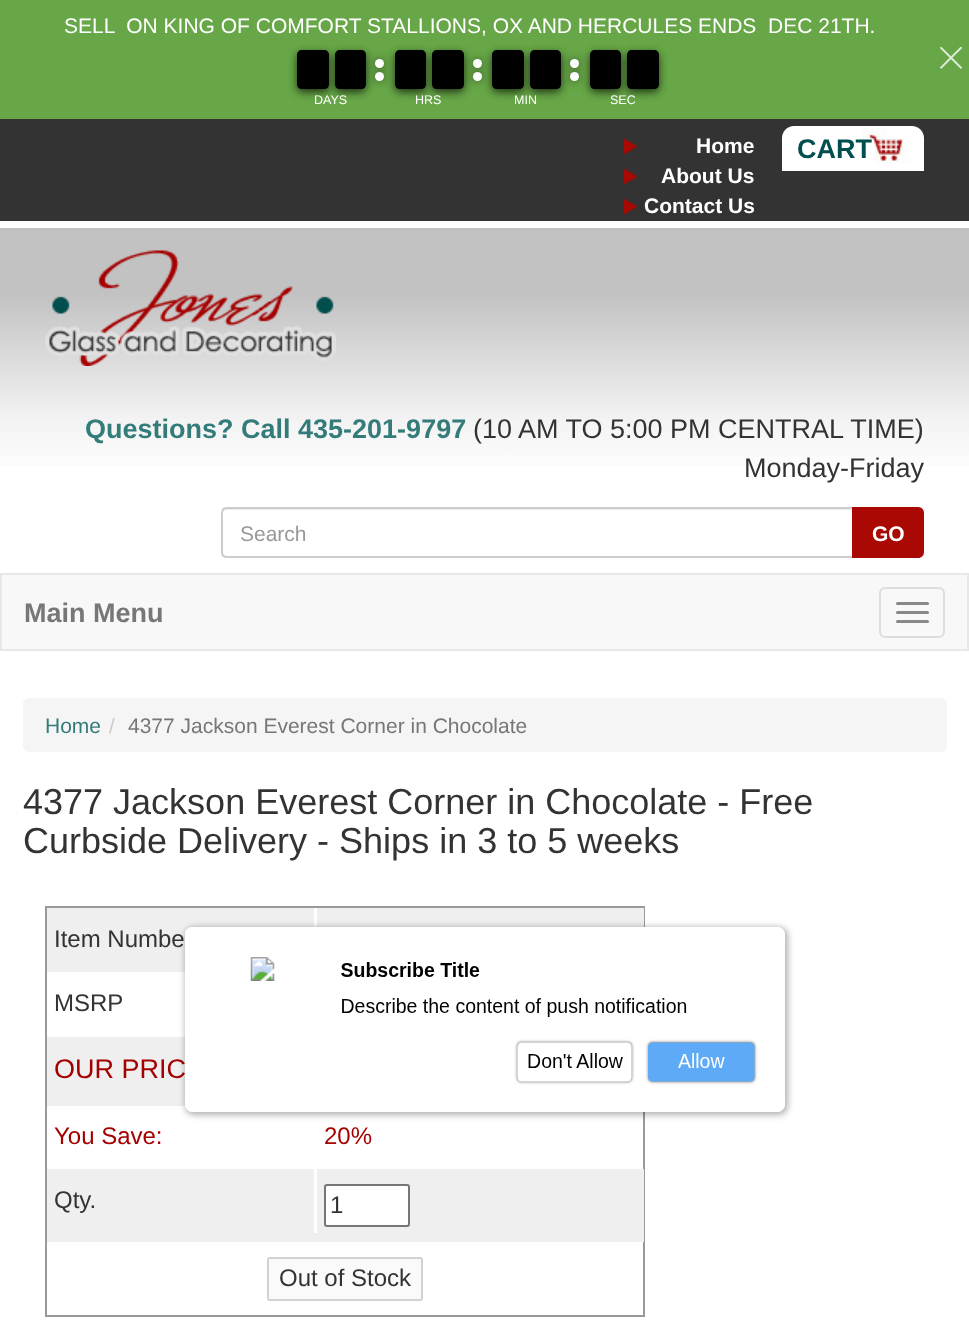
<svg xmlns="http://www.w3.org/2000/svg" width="969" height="1322">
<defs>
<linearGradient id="g1" gradientUnits="userSpaceOnUse" x1="485" y1="228" x2="485" y2="558"><stop offset="0" stop-color="#c2c2c2"/><stop offset="0.2" stop-color="#c2c2c2"/><stop offset="0.58" stop-color="#f3f3f3"/><stop offset="0.73" stop-color="#fdfdfd"/><stop offset="0.77" stop-color="#fff"/><stop offset="1" stop-color="#fff"/></linearGradient>
<clipPath id="clip1"><path d="M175 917h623v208h-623zm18 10h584c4.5 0 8 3.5 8 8v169c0 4.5-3.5 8-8 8h-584c-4.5 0-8-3.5-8-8v-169c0-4.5 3.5-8 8-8z" clip-rule="evenodd"/></clipPath>
</defs>
<rect width="100%" height="100%" fill="#fff"/>
<rect width="969" height="119" fill="#67a747"/>
<text x="64" y="33" style="font-family:Liberation Sans;font-size:21px;fill:#fff" xml:space="preserve">SELL  ON KING OF COMFORT STALLIONS, OX AND HERCULES ENDS  DEC 21TH.</text>
<rect x="297" y="53" width="32" height="39" rx="5" fill="#000000b3" filter="blur(4px)"/>
<rect x="335" y="53" width="31" height="39" rx="5" fill="#000000b3" filter="blur(4px)"/>
<path d="M302 50h22c3 0 5 2 5 5v14h-32v-14c0-3 2-5 5-5z" fill="#000"/>
<path d="M297 69h32v15c0 3-2 5-5 5h-22c-3 0-5-2-5-5z" fill="#000"/>
<rect x="375" y="72" width="9" height="9" rx="4.5" fill="#00000080" filter="blur(4px)"/>
<circle cx="379.5" cy="76.5" r="4.5" fill="#fff"/>
<rect x="375" y="59" width="9" height="9" rx="4.5" fill="#00000080" filter="blur(4px)"/>
<path d="M340 50h21c3 0 5 2 5 5v14h-31v-14c0-3 2-5 5-5z" fill="#000"/>
<path d="M335 69h31v15c0 3-2 5-5 5h-21c-3 0-5-2-5-5z" fill="#000"/>
<text x="314" y="104" style="font-family:Liberation Sans;font-size:12.5px;fill:#fff">DAYS</text>
<circle cx="379.5" cy="63.5" r="4.5" fill="#fff"/>
<rect x="395" y="53" width="31" height="39" rx="5" fill="#000000b3" filter="blur(4px)"/>
<rect x="432" y="53" width="32" height="39" rx="5" fill="#000000b3" filter="blur(4px)"/>
<path d="M400 50h21c3 0 5 2 5 5v14h-31v-14c0-3 2-5 5-5z" fill="#000"/>
<path d="M395 69h31v15c0 3-2 5-5 5h-21c-3 0-5-2-5-5z" fill="#000"/>
<rect x="473" y="72" width="9" height="9" rx="4.5" fill="#00000080" filter="blur(4px)"/>
<circle cx="477.5" cy="76.5" r="4.5" fill="#fff"/>
<rect x="473" y="59" width="9" height="9" rx="4.5" fill="#00000080" filter="blur(4px)"/>
<path d="M437 50h22c3 0 5 2 5 5v14h-32v-14c0-3 2-5 5-5z" fill="#000"/>
<path d="M432 69h32v15c0 3-2 5-5 5h-22c-3 0-5-2-5-5z" fill="#000"/>
<text x="415" y="104" style="font-family:Liberation Sans;font-size:12.5px;fill:#fff">HRS</text>
<circle cx="477.5" cy="63.5" r="4.5" fill="#fff"/>
<rect x="492" y="53" width="32" height="39" rx="5" fill="#000000b3" filter="blur(4px)"/>
<rect x="530" y="53" width="31" height="39" rx="5" fill="#000000b3" filter="blur(4px)"/>
<path d="M497 50h22c3 0 5 2 5 5v14h-32v-14c0-3 2-5 5-5z" fill="#000"/>
<path d="M492 69h32v15c0 3-2 5-5 5h-22c-3 0-5-2-5-5z" fill="#000"/>
<rect x="570" y="72" width="9" height="9" rx="4.5" fill="#00000080" filter="blur(4px)"/>
<circle cx="574.5" cy="76.5" r="4.5" fill="#fff"/>
<rect x="570" y="59" width="9" height="9" rx="4.5" fill="#00000080" filter="blur(4px)"/>
<path d="M535 50h21c3 0 5 2 5 5v14h-31v-14c0-3 2-5 5-5z" fill="#000"/>
<path d="M530 69h31v15c0 3-2 5-5 5h-21c-3 0-5-2-5-5z" fill="#000"/>
<text x="514" y="104" style="font-family:Liberation Sans;font-size:12.5px;fill:#fff">MIN</text>
<circle cx="574.5" cy="63.5" r="4.5" fill="#fff"/>
<rect x="590" y="53" width="31" height="39" rx="5" fill="#000000b3" filter="blur(4px)"/>
<rect x="627" y="53" width="32" height="39" rx="5" fill="#000000b3" filter="blur(4px)"/>
<path d="M595 50h21c3 0 5 2 5 5v14h-31v-14c0-3 2-5 5-5z" fill="#000"/>
<path d="M590 69h31v15c0 3-2 5-5 5h-21c-3 0-5-2-5-5z" fill="#000"/>
<path d="M632 50h22c3 0 5 2 5 5v14h-32v-14c0-3 2-5 5-5z" fill="#000"/>
<path d="M627 69h32v15c0 3-2 5-5 5h-22c-3 0-5-2-5-5z" fill="#000"/>
<text x="610" y="104" style="font-family:Liberation Sans;font-size:12.5px;fill:#fff">SEC</text>
<image x="939" y="47" width="23" height="22" href="media/1.png"/>
<rect y="119" width="969" height="102" fill="#333"/>
<image x="624" y="138" width="14" height="17" href="media/2.png"/>
<text x="696" y="153" style="font-family:Liberation Sans;font-size:21px;font-weight:bold;fill:#fff">Home</text>
<image x="624" y="168" width="14" height="17" href="media/2.png"/>
<text x="661" y="183" style="font-family:Liberation Sans;font-size:21px;font-weight:bold;fill:#fff">About Us</text>
<image x="624" y="198" width="14" height="17" href="media/2.png"/>
<text x="644" y="213" style="font-family:Liberation Sans;font-size:21px;font-weight:bold;fill:#fff">Contact Us</text>
<path d="M794 126h118c6.5 0 12 5.5 12 12v33h-142v-33c0-6.5 5.5-12 12-12z" fill="#fff"/>
<image x="862" y="127" width="49" height="37" href="media/3.png"/>
<text x="797" y="158" style="font-family:Liberation Sans;font-size:27px;font-weight:bold;fill:#004f4e">CART</text>
<rect y="228" width="969" height="238" fill="url(#g1)"/>
<image x="45" y="250" width="291" height="116" href="media/4.png"/>
<text x="85" y="438" style="font-family:Liberation Sans;font-size:27px;font-weight:bold;fill:#337c7a">Questions? Call 435-201-9797</text>
<text x="473" y="438" style="font-family:Liberation Sans;font-size:27px;fill:#333">(10 AM TO 5:00 PM CENTRAL TIME)</text>
<text x="744" y="477" style="font-family:Liberation Sans;font-size:27px;fill:#333">Monday-Friday</text>
<path d="M226 510h626v-1h-625c-3 0-5 2-5 5c0-2 2-4 4-4z" fill="#ececec"/>
<path d="M227 508h626v49h-626c-3 0-5-2-5-5v-39c0-3 2-5 5-5z" fill="none" stroke="#ccc" stroke-width="2"/>
<text x="240" y="541" style="font-family:Liberation Sans;font-size:21px;fill:#999">Search</text>
<path d="M852 507h66c3.5 0 6 2.5 6 6v39c0 3.5-2.5 6-6 6h-66z" fill="#a90803"/>
<text x="872" y="541" style="font-family:Liberation Sans;font-size:21px;font-weight:bold;fill:#fff">GO</text>
<rect x="1" y="574" width="967" height="76" fill="#f8f8f8" stroke="#e7e7e7" stroke-width="2"/>
<text x="24" y="622" style="font-family:Liberation Sans;font-size:27px;font-weight:bold;fill:#777">Main Menu</text>
<rect x="880" y="588" width="64" height="49" rx="5" fill="none" stroke="#ddd" stroke-width="2"/>
<rect x="896" y="602" width="33" height="3" rx="1.5" fill="#888"/>
<rect x="896" y="611" width="33" height="3" rx="1.5" fill="#888"/>
<rect x="896" y="620" width="33" height="3" rx="1.5" fill="#888"/>
<rect x="23" y="698" width="924" height="54" rx="6" fill="#f5f5f5"/>
<text x="45" y="733" style="font-family:Liberation Sans;font-size:21px;fill:#337c7a">Home</text>
<text x="109" y="733" style="font-family:Liberation Sans;font-size:21px;fill:#ccc">/</text>
<text x="128" y="733" style="font-family:Liberation Sans;font-size:21px;fill:#777">4377 Jackson Everest Corner in Chocolate</text>
<text x="23" y="814" style="font-family:Liberation Sans;font-size:36px;fill:#333">4377 Jackson Everest Corner in Chocolate - Free</text>
<text x="23" y="853" style="font-family:Liberation Sans;font-size:36px;fill:#333">Curbside Delivery - Ships in 3 to 5 weeks</text>
<rect x="46" y="907" width="598" height="409" fill="none" stroke="#999" stroke-width="2"/>
<rect x="47" y="908" width="597" height="64" fill="#efefef"/>
<rect x="314" y="908" width="3" height="64" fill="#fff"/>
<text x="54" y="947" style="font-family:Liberation Sans;font-size:24px;fill:#333">Item Numbe</text>
<text x="54" y="1011" style="font-family:Liberation Sans;font-size:24px;fill:#333">MSRP</text>
<rect x="47" y="1037" width="597" height="69" fill="#efefef"/>
<text x="54" y="1078" style="font-family:Liberation Sans;font-size:27px;fill:#a50000">OUR PRIC</text>
<text x="54" y="1144" style="font-family:Liberation Sans;font-size:24px;fill:#a50000">You Save:</text>
<text x="324" y="1144" style="font-family:Liberation Sans;font-size:24px;fill:#a50000">20%</text>
<rect x="47" y="1169" width="597" height="73" fill="#efefef"/>
<rect x="314" y="1169" width="3" height="64" fill="#fff"/>
<text x="54" y="1208" style="font-family:Liberation Sans;font-size:24px;fill:#333">Qty.</text>
<rect x="325" y="1185" width="84" height="41" rx="2" fill="#fff" stroke="#767676" stroke-width="2"/>
<text x="330" y="1213" style="font-family:Liberation Sans;font-size:24px;fill:#333">1</text>
<rect x="268" y="1258" width="154" height="42" rx="2" fill="#fafafa" stroke="#d2d2d2" stroke-width="2"/>
<text x="279" y="1286" style="font-family:Liberation Sans;font-size:24px;fill:#333">Out of Stock</text>
<g clip-path="url(#clip1)">
<rect x="185" y="927" width="603" height="188" rx="9" fill="#0000004d" filter="blur(3px)"/>
</g>
<rect x="185" y="927" width="600" height="185" rx="8" fill="#fffffff2"/>
<image x="185" y="927" width="573" height="184" href="media/5.png"/>
</svg>
